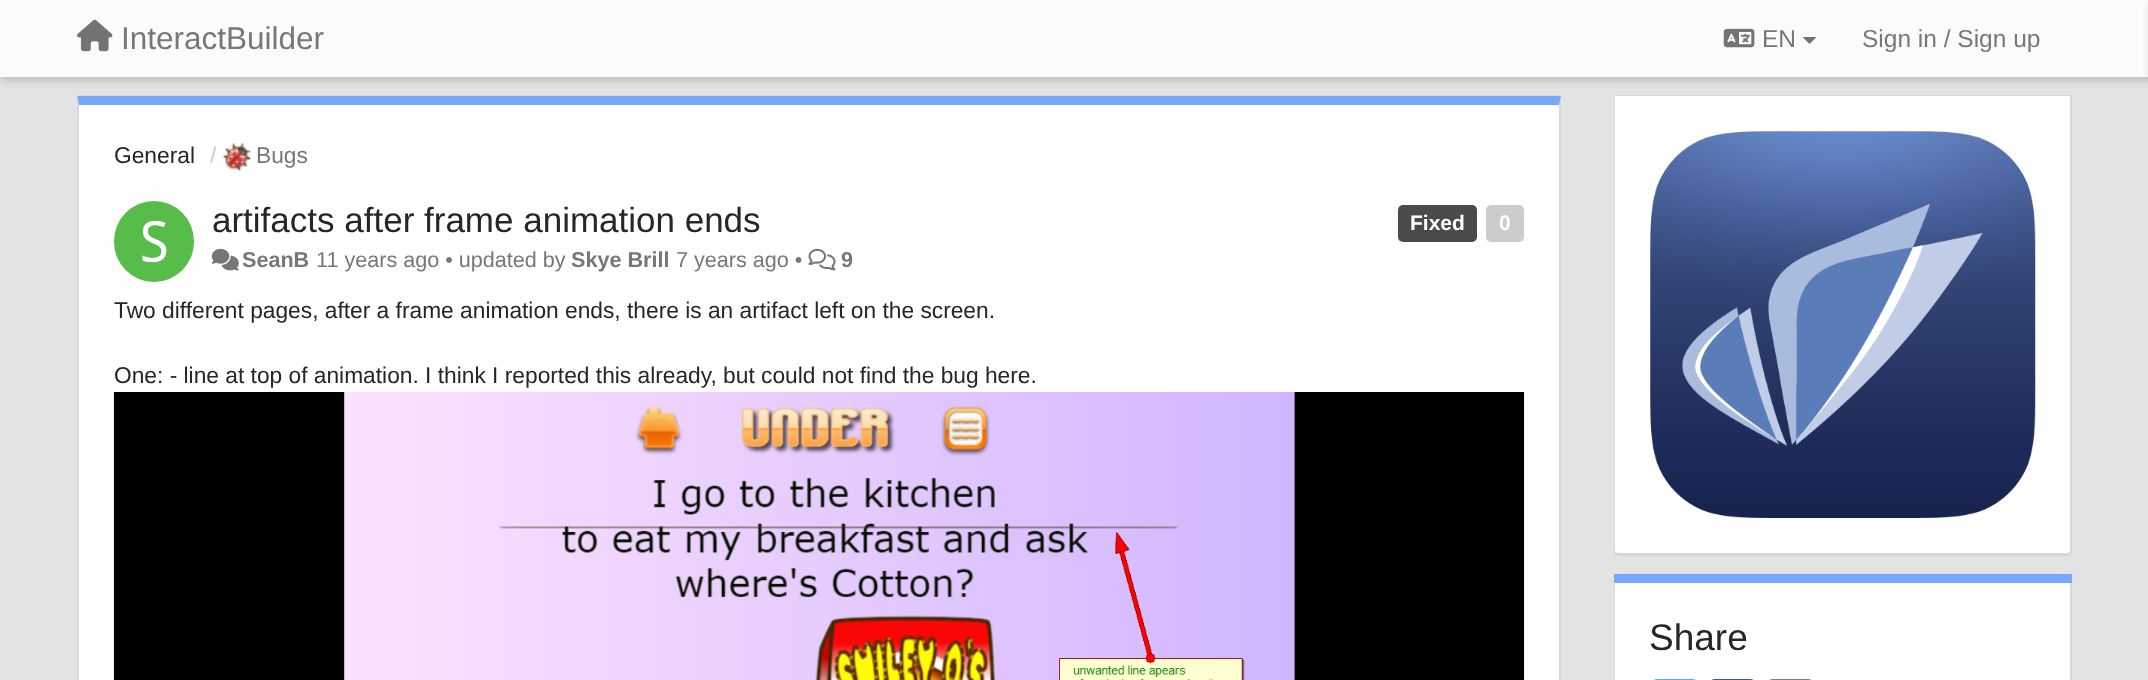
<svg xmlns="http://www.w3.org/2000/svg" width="2148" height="680">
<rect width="100%" height="100%" fill="#e3e3e3"/>
<rect y="4" width="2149" height="77" fill="#00000026" filter="blur(3.5px)"/>
<rect width="2148" height="77" fill="#fbfbfb"/>
<image x="77" y="19" width="36" height="33" href="media/1.png"/>
<text x="121" y="49" style="font-family:Liberation Sans;font-size:31.5px;fill:#777">InteractBuilder</text>
<image x="1723" y="28" width="32" height="20" href="media/2.png"/>
<text x="1762" y="47" style="font-family:Liberation Sans;font-size:24.5px;fill:#777">EN</text>
<path d="M1802.5 37h14l-7 7z" fill="#737373"/>
<text x="1862" y="47" style="font-family:Liberation Sans;font-size:24.5px;fill:#777">Sign in / Sign up</text>
<rect x="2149" y="4" width="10" height="77" fill="#00000026" filter="blur(3.5px)"/>
<rect x="77" y="95" width="1484" height="2" fill="#d8d8d8"/>
<path d="M79 105h1480v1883c0 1-1 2-3 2h-1474c-2 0-3-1-3-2z" fill="#fff"/>
<path d="M79 105h1480v1l2-10h-1484l2 10z" fill="#76a7fa"/>
<path d="M1561 96l-2 10v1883l1 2l1-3z" fill="#d8d8d8"/>
<path d="M77 96v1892l1 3l1-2v-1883z" fill="#d8d8d8"/>
<text x="114" y="163" style="font-family:Liberation Sans;font-size:22.75px;fill:#262626">General</text>
<text x="210" y="163" style="font-family:Liberation Sans;font-size:22.75px;fill:#ccc">/</text>
<image x="222" y="143" width="29" height="29" href="media/3.png"/>
<text x="256" y="163" style="font-family:Liberation Sans;font-size:22.75px;fill:#777">Bugs</text>
<rect x="114" y="201" width="80" height="81" rx="40" fill="#58bc4a"/>
<image x="142" y="220" width="25" height="43" href="media/4.png"/>
<text x="212" y="232" style="font-family:Liberation Sans;font-size:35px;fill:#262626">artifacts after frame animation ends</text>
<rect x="1398" y="205" width="79" height="37" rx="5" fill="#4a4a4a"/>
<text x="1410" y="230" style="font-family:Liberation Sans;font-size:21px;font-weight:bold;fill:#fff">Fixed</text>
<rect x="1486" y="205" width="38" height="37" rx="5" fill="#ccc"/>
<text x="1499" y="230" style="font-family:Liberation Sans;font-size:21px;font-weight:bold;fill:#fff">0</text>
<image x="211" y="248" width="28" height="23" href="media/5.png"/>
<text x="242" y="267" style="font-family:Liberation Sans;font-size:21.6px;font-weight:bold;fill:#777">SeanB</text>
<text x="316" y="267" style="font-family:Liberation Sans;font-size:21.6px;fill:#777">11 years ago • updated by</text>
<text x="571" y="267" style="font-family:Liberation Sans;font-size:21.6px;font-weight:bold;fill:#777">Skye Brill</text>
<text x="676" y="267" style="font-family:Liberation Sans;font-size:21.6px;fill:#777">7 years ago •</text>
<image x="808" y="248" width="28" height="23" href="media/6.png"/>
<text x="841" y="267" style="font-family:Liberation Sans;font-size:21.6px;font-weight:bold;fill:#777">9</text>
<text x="114" y="318" style="font-family:Liberation Sans;font-size:22.75px;fill:#262626">Two different pages, after a frame animation ends, there is an artifact left on the screen.</text>
<text x="114" y="383" style="font-family:Liberation Sans;font-size:22.75px;fill:#262626">One: - line at top of animation. I think I reported this already, but could not find the bug here.</text>
<image x="113" y="392" width="1412" height="288" href="media/7.png"/>
<rect x="1614" y="95" width="458" height="1" fill="#d8d8d8"/>
<path d="M1615 96h455v455c0 1-1 2-3 2h-448c-2 0-4-1-4-2z" fill="#fff"/>
<path d="M1614 96h458v455c0 3-2 5-5 5h-448c-3 0-5-2-5-5zm1 0h455v455c0 1-1 2-3 2h-448c-2 0-4-1-4-2z" fill="#d8d8d8" fill-rule="evenodd"/>
<image x="1650" y="131" width="386" height="387" href="media/8.png"/>
<rect x="1614" y="574" width="458" height="9" fill="#76a7fa"/>
<path d="M1615 583h455v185c0 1-1 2-3 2h-448c-2 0-4-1-4-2z" fill="#fff"/>
<path d="M1614 583h458v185c0 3-2 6-5 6h-448c-3 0-5-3-5-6zm1 0h455v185c0 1-1 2-3 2h-448c-2 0-4-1-4-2z" fill="#d8d8d8" fill-rule="evenodd"/>
<text x="1649" y="650" style="font-family:Liberation Sans;font-size:37px;fill:#262626">Share</text>
<image x="1654" y="679" width="42" height="1" href="media/9.png"/>
<image x="1711" y="679" width="43" height="1" href="media/10.png"/>
<image x="1769" y="679" width="42" height="1" href="media/11.png"/>
</svg>
